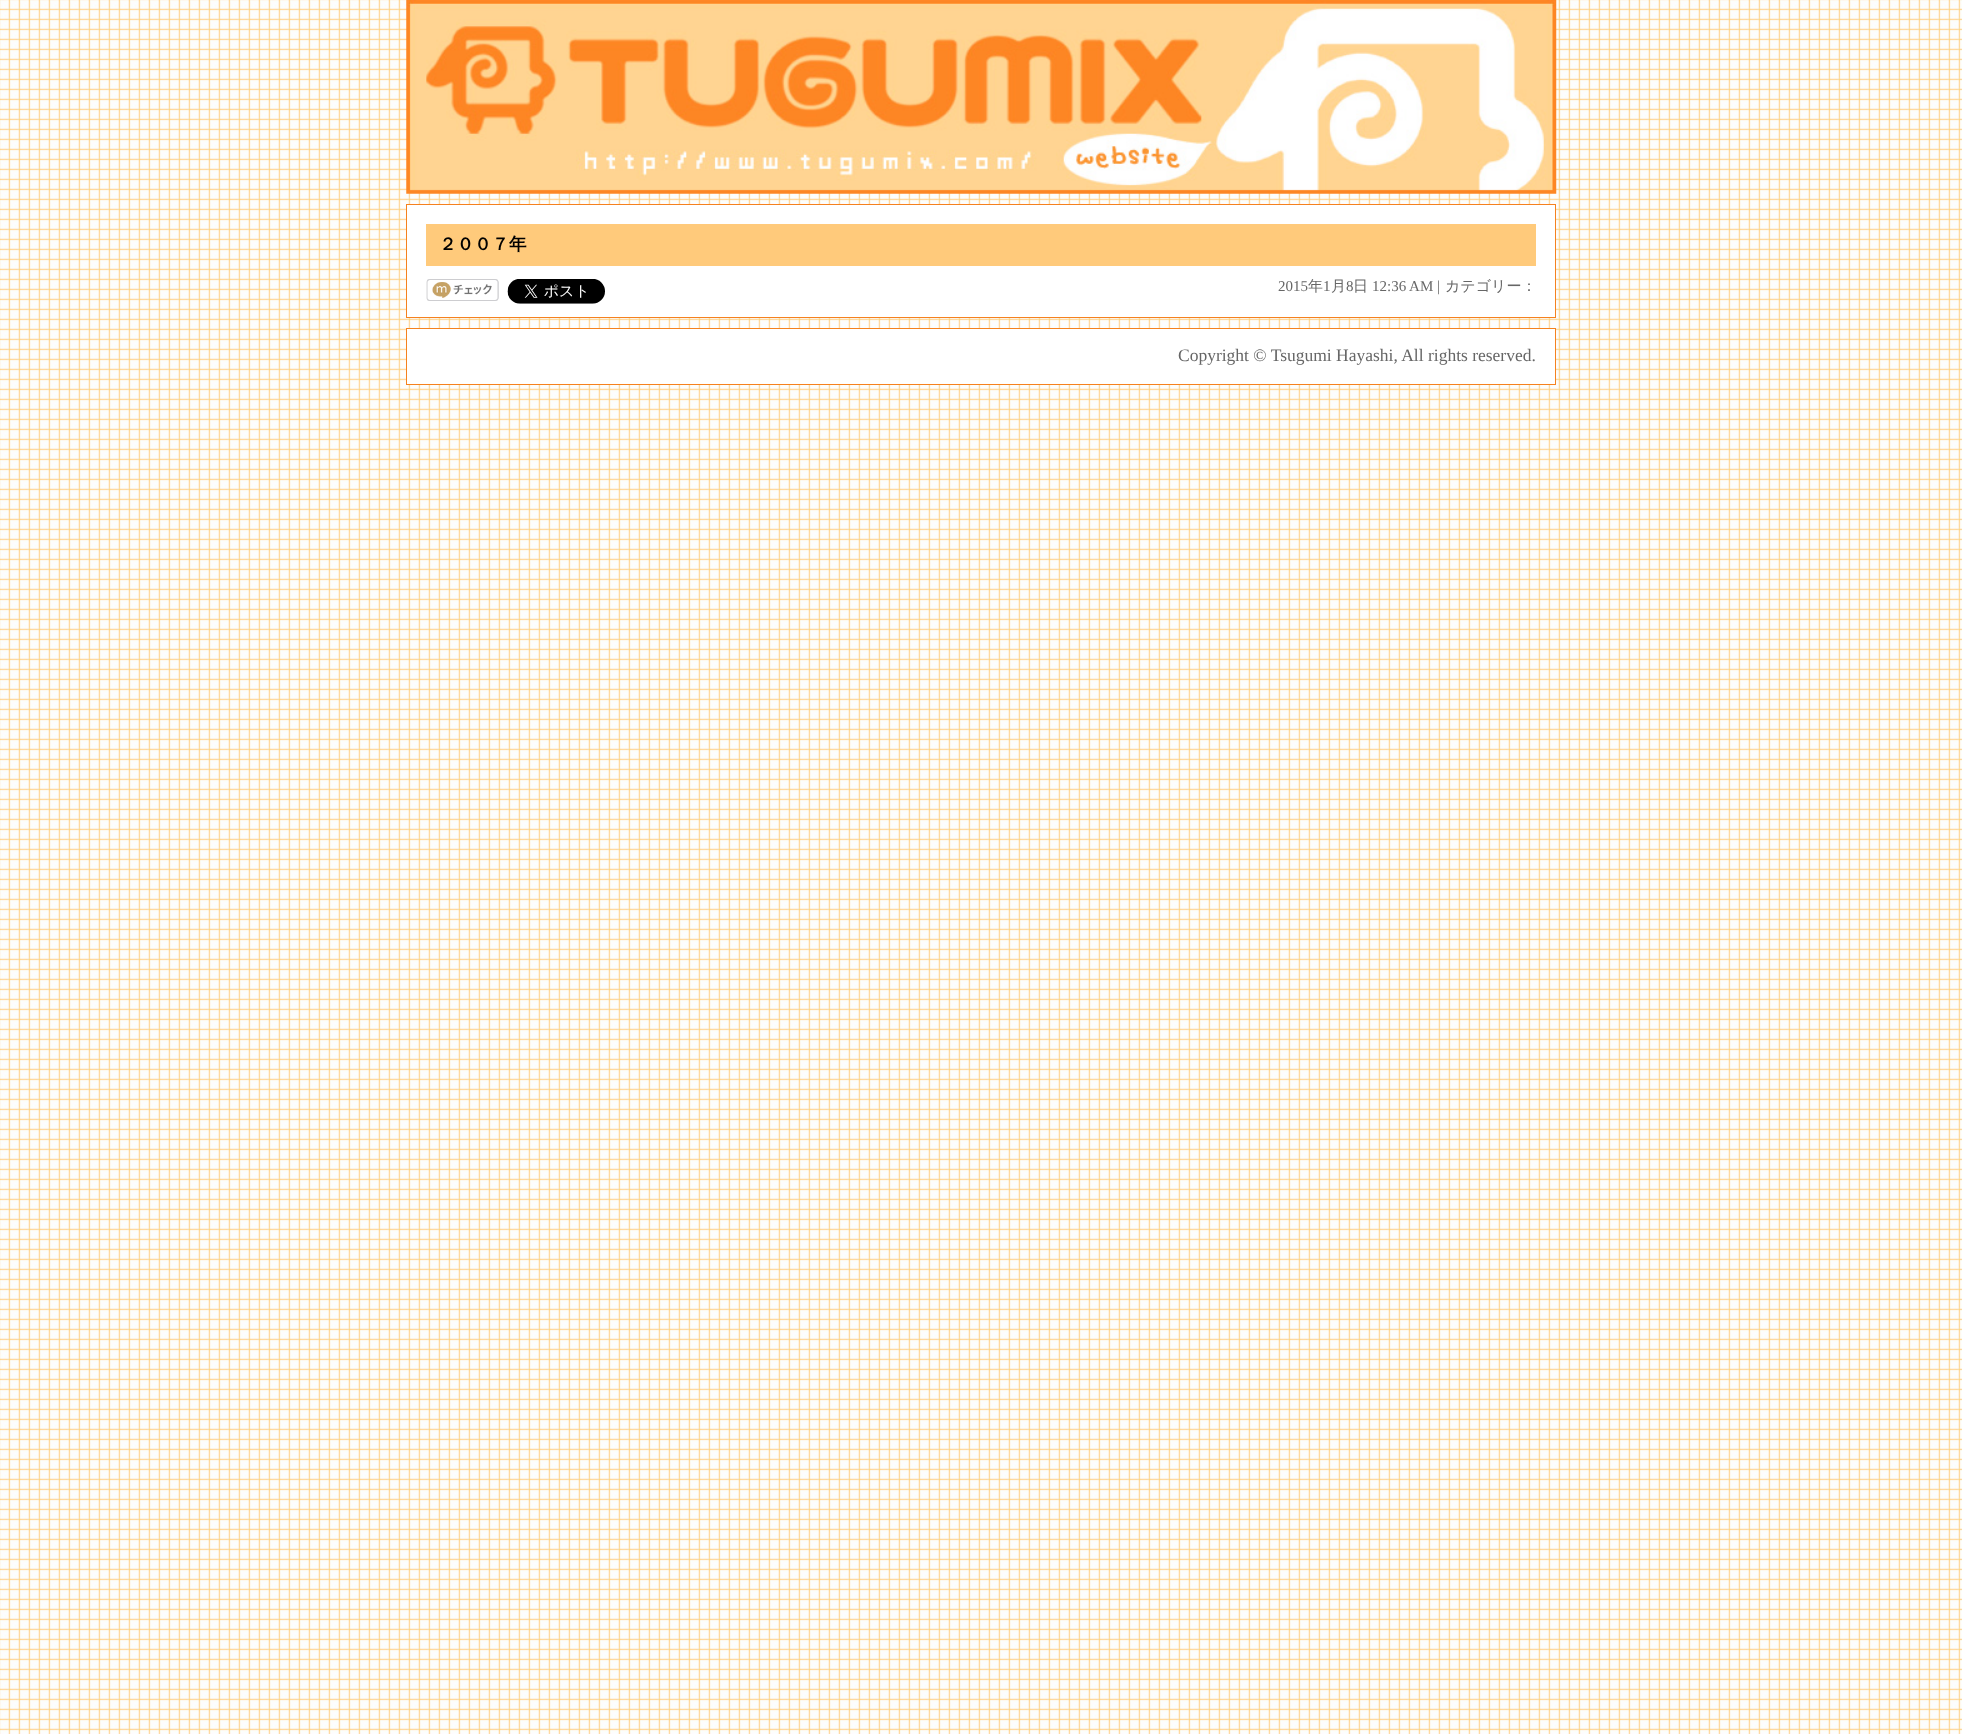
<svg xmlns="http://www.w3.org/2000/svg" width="1962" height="1734">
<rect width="100%" height="100%" fill="#fff"/>
<image x="0" y="0" width="1962" height="1734" href="media/1.png"/>
<image x="406" y="0" width="1151" height="194" href="media/2.png"/>
<rect x="406.5" y="204.5" width="1149" height="113" fill="#fff" stroke="#f5811e"/>
<rect x="426" y="224" width="1110" height="42" fill="#ffca7b"/>
<text x="439" y="250" style="font-family:WenQuanYi Zen Hei;font-size:17.5px;font-weight:bold;fill:#000">２００７年</text>
<image x="426" y="279" width="73" height="22" href="media/3.png"/>
<image x="507" y="279" width="98" height="25" href="media/4.png"/>
<text x="1278" y="291" style="font-family:Liberation Serif;font-size:15px;fill:#666">2015</text>
<text x="1308" y="291" style="font-family:WenQuanYi Zen Hei;font-size:15px;font-weight:500;fill:#666">年</text>
<text x="1323" y="291" style="font-family:Liberation Serif;font-size:15px;fill:#666">1</text>
<text x="1331" y="291" style="font-family:WenQuanYi Zen Hei;font-size:15px;font-weight:500;fill:#666">月</text>
<text x="1346" y="291" style="font-family:Liberation Serif;font-size:15px;fill:#666">8</text>
<text x="1353" y="291" style="font-family:WenQuanYi Zen Hei;font-size:15px;font-weight:500;fill:#666">日</text>
<text x="1372" y="291" style="font-family:Liberation Serif;font-size:15px;fill:#666">12:36 AM |</text>
<text x="1445" y="291" style="font-family:WenQuanYi Zen Hei;font-size:15px;font-weight:500;fill:#666">カテゴリー：</text>
<rect x="406.5" y="328.5" width="1149" height="56" fill="#fff" stroke="#f5811e"/>
<text x="1178" y="361" style="font-family:Liberation Serif;font-size:17.5px;fill:#666">Copyright © Tsugumi Hayashi, All rights reserved.</text>
</svg>
